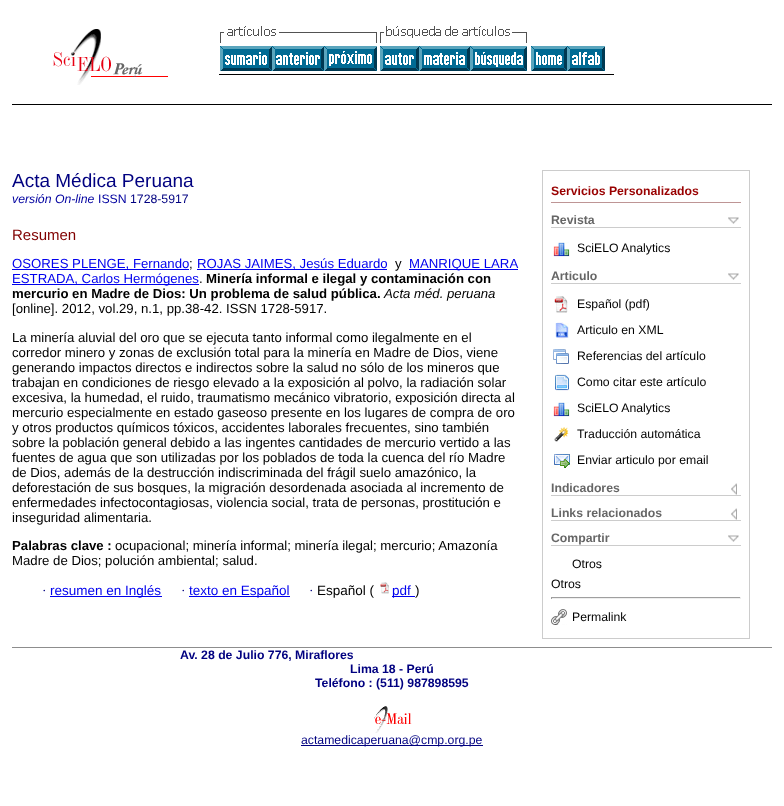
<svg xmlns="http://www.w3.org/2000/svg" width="784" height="806">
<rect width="100%" height="100%" fill="#fff"/>
<rect x="12" y="104" width="760" height="1" fill="#000"/>
<image x="53" y="29" width="115" height="56" href="media/1.png"/>
<rect x="219" y="74" width="395" height="1" fill="#000"/>
<image x="220" y="26" width="157" height="17" href="media/2.png"/>
<image x="380" y="26" width="147" height="17" href="media/3.png"/>
<image x="220" y="46" width="52" height="25" href="media/4.png"/>
<image x="272" y="46" width="52" height="25" href="media/5.png"/>
<image x="324" y="46" width="53" height="25" href="media/6.png"/>
<image x="380" y="46" width="39" height="25" href="media/7.png"/>
<image x="419" y="46" width="51" height="25" href="media/8.png"/>
<image x="470" y="46" width="57" height="25" href="media/9.png"/>
<image x="531" y="46" width="36" height="25" href="media/10.png"/>
<image x="567" y="46" width="38" height="25" href="media/11.png"/>
<rect x="12" y="647" width="760" height="1" fill="#8d8d8d"/>
<text x="12" y="187" style="font-family:Liberation Sans;font-size:19px;fill:#000080">Acta Médica Peruana</text>
<text x="12" y="203" style="font-family:Liberation Sans;font-size:12.25px;font-style:italic;fill:#0000a0">versión On-line</text>
<text x="98" y="203" style="font-family:Liberation Sans;font-size:12.25px;fill:#0000a0">ISSN</text>
<text x="130" y="203" style="font-family:Liberation Sans;font-size:12.25px;fill:#000080">1728-5917</text>
<rect x="542.5" y="170.5" width="207" height="468" fill="none" stroke="#ccc"/>
<rect x="551" y="202" width="190" height="1" fill="#be9595"/>
<text x="551" y="195" style="font-family:Liberation Sans;font-size:12.25px;font-weight:bold;fill:#900">Servicios Personalizados</text>
<image x="728" y="217" width="11" height="7" href="media/12.png"/>
<rect x="551" y="227" width="190" height="1" fill="#ccc"/>
<text x="551" y="224" style="font-family:Liberation Sans;font-size:12.25px;font-weight:bold;fill:#666">Revista</text>
<image x="553" y="242" width="17" height="15" href="media/13.png"/>
<text x="577" y="252" style="font-family:Liberation Sans;font-size:12.25px;fill:#000">SciELO Analytics</text>
<image x="728" y="273" width="11" height="7" href="media/12.png"/>
<rect x="551" y="283" width="190" height="1" fill="#ccc"/>
<text x="551" y="280" style="font-family:Liberation Sans;font-size:12.25px;font-weight:bold;fill:#666">Articulo</text>
<image x="554" y="296" width="14" height="17" href="media/14.png"/>
<text x="577" y="308" style="font-family:Liberation Sans;font-size:12.25px;fill:#000">Español (pdf)</text>
<image x="555" y="322" width="14" height="17" href="media/15.png"/>
<text x="577" y="334" style="font-family:Liberation Sans;font-size:12.25px;fill:#000">Articulo en XML</text>
<image x="553" y="349" width="16" height="15" href="media/16.png"/>
<text x="577" y="360" style="font-family:Liberation Sans;font-size:12.25px;fill:#000">Referencias del artículo</text>
<image x="555" y="374" width="15" height="17" href="media/17.png"/>
<text x="577" y="386" style="font-family:Liberation Sans;font-size:12.25px;fill:#000">Como citar este artículo</text>
<image x="553" y="402" width="17" height="15" href="media/13.png"/>
<text x="577" y="412" style="font-family:Liberation Sans;font-size:12.25px;fill:#000">SciELO Analytics</text>
<image x="554" y="427" width="15" height="15" href="media/18.png"/>
<text x="577" y="438" style="font-family:Liberation Sans;font-size:12.25px;fill:#000">Traducción automática</text>
<image x="551" y="453" width="21" height="15" href="media/19.png"/>
<text x="577" y="464" style="font-family:Liberation Sans;font-size:12.25px;fill:#000">Enviar articulo por email</text>
<image x="731" y="483" width="6" height="12" href="media/20.png"/>
<rect x="551" y="495" width="190" height="1" fill="#ccc"/>
<text x="551" y="492" style="font-family:Liberation Sans;font-size:12.25px;font-weight:bold;fill:#666">Indicadores</text>
<image x="731" y="508" width="6" height="12" href="media/20.png"/>
<rect x="551" y="520" width="190" height="1" fill="#ccc"/>
<text x="551" y="517" style="font-family:Liberation Sans;font-size:12.25px;font-weight:bold;fill:#666">Links relacionados</text>
<image x="728" y="535" width="11" height="7" href="media/12.png"/>
<rect x="551" y="545" width="190" height="1" fill="#ccc"/>
<text x="551" y="542" style="font-family:Liberation Sans;font-size:12.25px;font-weight:bold;fill:#666">Compartir</text>
<text x="572" y="568" style="font-family:Liberation Sans;font-size:12.25px;fill:#000">Otros</text>
<text x="551" y="588" style="font-family:Liberation Sans;font-size:12.25px;fill:#000">Otros</text>
<rect x="551" y="597" width="190" height="1" fill="#9f9f9f"/>
<rect x="740" y="597" width="1" height="2" fill="#eee"/>
<rect x="551" y="598" width="190" height="1" fill="#eee"/>
<rect x="551" y="597" width="1" height="2" fill="#9f9f9f"/>
<image x="551" y="609" width="16" height="16" href="media/21.png"/>
<text x="572" y="621" style="font-family:Liberation Sans;font-size:12.25px;fill:#000">Permalink</text>
<text x="12" y="240" style="font-family:Liberation Sans;font-size:15px;fill:#800000">Resumen</text>
<rect x="12" y="269" width="177" height="1" fill="#00e"/>
<text x="12" y="268" style="font-family:Liberation Sans;font-size:13.2px;fill:#00e">OSORES PLENGE, Fernando</text>
<text x="189" y="268" style="font-family:Liberation Sans;font-size:13.2px;fill:#000">;</text>
<rect x="197" y="269" width="190" height="1" fill="#00e"/>
<text x="197" y="268" style="font-family:Liberation Sans;font-size:13.2px;fill:#00e">ROJAS JAIMES, Jesús Eduardo</text>
<text x="395" y="268" style="font-family:Liberation Sans;font-size:13.2px;fill:#000">y</text>
<rect x="409" y="269" width="109" height="1" fill="#00e"/>
<text x="409" y="268" style="font-family:Liberation Sans;font-size:13.2px;fill:#00e">MANRIQUE LARA</text>
<rect x="12" y="284" width="187" height="1" fill="#00e"/>
<text x="12" y="283" style="font-family:Liberation Sans;font-size:13.2px;fill:#00e">ESTRADA, Carlos Hermógenes</text>
<text x="199" y="283" style="font-family:Liberation Sans;font-size:13.2px;fill:#000">.</text>
<text x="206" y="283" style="font-family:Liberation Sans;font-size:13.2px;font-weight:bold;fill:#000">Minería informal e ilegal y contaminación con</text>
<text x="12" y="298" style="font-family:Liberation Sans;font-size:13.2px;font-weight:bold;fill:#000">mercurio en Madre de Dios: Un problema de salud pública.</text>
<text x="384" y="298" style="font-family:Liberation Sans;font-size:13.2px;font-style:italic;fill:#000">Acta méd. peruana</text>
<text x="12" y="313" style="font-family:Liberation Sans;font-size:13.2px;fill:#000">[online]. 2012, vol.29, n.1, pp.38-42. ISSN 1728-5917.</text>
<text x="12" y="342" style="font-family:Liberation Sans;font-size:13.2px;fill:#000">La minería aluvial del oro que se ejecuta tanto informal como ilegalmente en el</text>
<text x="12" y="357" style="font-family:Liberation Sans;font-size:13.2px;fill:#000">corredor minero y zonas de exclusión total para la minería en Madre de Dios, viene</text>
<text x="12" y="372" style="font-family:Liberation Sans;font-size:13.2px;fill:#000">generando impactos directos e indirectos sobre la salud no sólo de los mineros que</text>
<text x="12" y="387" style="font-family:Liberation Sans;font-size:13.2px;fill:#000">trabajan en condiciones de riesgo elevado a la exposición al polvo, la radiación solar</text>
<text x="12" y="402" style="font-family:Liberation Sans;font-size:13.2px;fill:#000">excesiva, la humedad, el ruido, traumatismo mecánico vibratorio, exposición directa al</text>
<text x="12" y="417" style="font-family:Liberation Sans;font-size:13.2px;fill:#000">mercurio especialmente en estado gaseoso presente en los lugares de compra de oro</text>
<text x="12" y="432" style="font-family:Liberation Sans;font-size:13.2px;fill:#000">y otros productos químicos tóxicos, accidentes laborales frecuentes, sino también</text>
<text x="12" y="447" style="font-family:Liberation Sans;font-size:13.2px;fill:#000">sobre la población general debido a las ingentes cantidades de mercurio vertido a las</text>
<text x="12" y="462" style="font-family:Liberation Sans;font-size:13.2px;fill:#000">fuentes de agua que son utilizadas por los poblados de toda la cuenca del río Madre</text>
<text x="12" y="477" style="font-family:Liberation Sans;font-size:13.2px;fill:#000">de Dios, además de la destrucción indiscriminada del frágil suelo amazónico, la</text>
<text x="12" y="492" style="font-family:Liberation Sans;font-size:13.2px;fill:#000">deforestación de sus bosques, la migración desordenada asociada al incremento de</text>
<text x="12" y="507" style="font-family:Liberation Sans;font-size:13.2px;fill:#000">enfermedades infectocontagiosas, violencia social, trata de personas, prostitución e</text>
<text x="12" y="522" style="font-family:Liberation Sans;font-size:13.2px;fill:#000">inseguridad alimentaria.</text>
<text x="12" y="550" style="font-family:Liberation Sans;font-size:13.2px;font-weight:bold;fill:#000">Palabras clave :</text>
<text x="115" y="550" style="font-family:Liberation Sans;font-size:13.2px;fill:#000">ocupacional; minería informal; minería ilegal; mercurio; Amazonía</text>
<text x="12" y="565" style="font-family:Liberation Sans;font-size:13.2px;fill:#000">Madre de Dios; polución ambiental; salud.</text>
<text x="42" y="595" style="font-family:Liberation Serif;font-size:13.5px;fill:#000080">·</text>
<rect x="50" y="596" width="112" height="1" fill="#00e"/>
<text x="50" y="595" style="font-family:Liberation Sans;font-size:13.5px;fill:#00e">resumen en Inglés</text>
<text x="181" y="595" style="font-family:Liberation Serif;font-size:13.5px;fill:#000080">·</text>
<rect x="189" y="596" width="101" height="1" fill="#00e"/>
<text x="189" y="595" style="font-family:Liberation Sans;font-size:13.5px;fill:#00e">texto en Español</text>
<text x="309" y="595" style="font-family:Liberation Serif;font-size:13.5px;fill:#000080">·</text>
<text x="317" y="595" style="font-family:Liberation Sans;font-size:13.5px;fill:#000">Español (</text>
<image x="380" y="582" width="9" height="12" href="media/22.png"/>
<rect x="392" y="596" width="23" height="1" fill="#00e"/>
<text x="392" y="595" style="font-family:Liberation Sans;font-size:13.5px;fill:#00e">pdf</text>
<text x="415" y="595" style="font-family:Liberation Sans;font-size:13.5px;fill:#000">)</text>
<text x="180" y="659" style="font-family:Liberation Sans;font-size:12.25px;font-weight:bold;fill:#000080">Av. 28 de Julio 776, Miraflores</text>
<text x="350" y="673" style="font-family:Liberation Sans;font-size:12.25px;font-weight:bold;fill:#000080">Lima 18 - Perú</text>
<text x="315" y="687" style="font-family:Liberation Sans;font-size:12.25px;font-weight:bold;fill:#000080">Teléfono : (511) 987898595</text>
<image x="374" y="706" width="38" height="27" href="media/23.png"/>
<rect x="301" y="745" width="182" height="1" fill="#000080"/>
<text x="301" y="744" style="font-family:Liberation Sans;font-size:12.25px;fill:#000080">actamedicaperuana@cmp.org.pe</text>
</svg>
